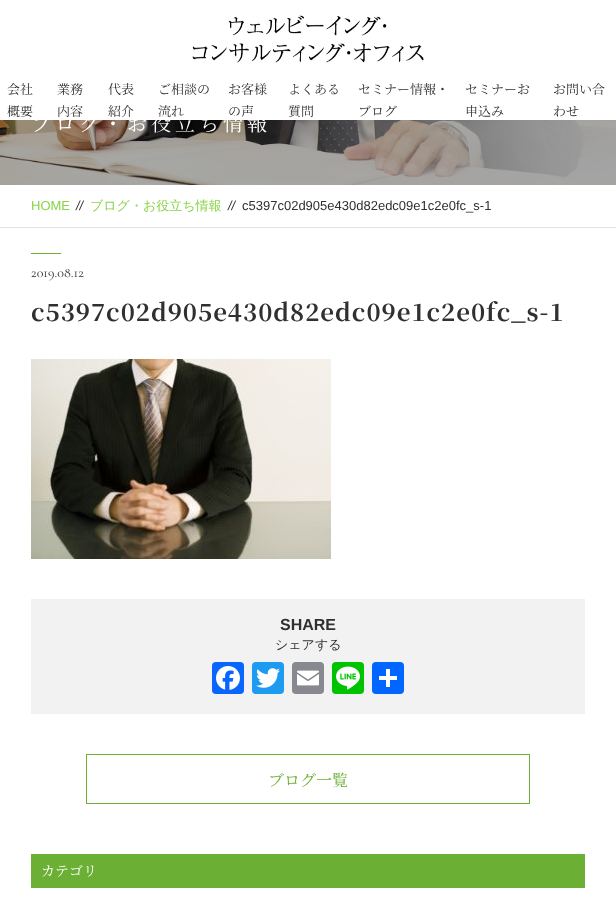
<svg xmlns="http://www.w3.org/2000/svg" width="616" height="901">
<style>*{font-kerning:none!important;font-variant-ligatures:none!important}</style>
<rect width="100%" height="100%" fill="#fff"/>
<image x="192" y="15" width="232" height="48" href="media/1.png"/>
<text x="7" y="94" style="font-family:Noto Serif JP;font-size:13px;fill:#303030">会社</text>
<text x="7" y="116" style="font-family:Noto Serif JP;font-size:13px;fill:#303030">概要</text>
<text x="57" y="94" style="font-family:Noto Serif JP;font-size:13px;fill:#303030">業務</text>
<text x="57" y="116" style="font-family:Noto Serif JP;font-size:13px;fill:#303030">内容</text>
<text x="108" y="94" style="font-family:Noto Serif JP;font-size:13px;fill:#303030">代表</text>
<text x="108" y="116" style="font-family:Noto Serif JP;font-size:13px;fill:#303030">紹介</text>
<text x="158" y="94" style="font-family:Noto Serif JP;font-size:13px;fill:#303030">ご相談の</text>
<text x="158" y="116" style="font-family:Noto Serif JP;font-size:13px;fill:#303030">流れ</text>
<text x="228" y="94" style="font-family:Noto Serif JP;font-size:13px;fill:#303030">お客様</text>
<text x="228" y="116" style="font-family:Noto Serif JP;font-size:13px;fill:#303030">の声</text>
<text x="288" y="94" style="font-family:Noto Serif JP;font-size:13px;fill:#303030">よくある</text>
<text x="288" y="116" style="font-family:Noto Serif JP;font-size:13px;fill:#303030">質問</text>
<text x="358" y="94" style="font-family:Noto Serif JP;font-size:13px;fill:#303030">セミナー情報・</text>
<text x="358" y="116" style="font-family:Noto Serif JP;font-size:13px;fill:#303030">ブログ</text>
<text x="465" y="94" style="font-family:Noto Serif JP;font-size:13px;fill:#303030">セミナーお</text>
<text x="465" y="116" style="font-family:Noto Serif JP;font-size:13px;fill:#303030">申込み</text>
<text x="553" y="94" style="font-family:Noto Serif JP;font-size:13px;fill:#303030">お問い合</text>
<text x="553" y="116" style="font-family:Noto Serif JP;font-size:13px;fill:#303030">わせ</text>
<image x="0" y="120" width="616" height="65" href="media/2.png"/>
<text x="31" y="131" style="font-family:Noto Serif JP;font-size:20px;letter-spacing:4px;fill:#fff">ブログ・お役立ち情報</text>
<rect y="227" width="616" height="1" fill="#e3e3e3"/>
<text x="31" y="210" style="font-family:Liberation Sans;font-size:13px;fill:#89d448">HOME</text>
<text x="76" y="210" style="font-family:Liberation Sans;font-size:13px;font-style:italic;fill:#303030">//</text>
<text x="90" y="210" style="font-family:WenQuanYi Zen Hei;font-size:13px;font-weight:500;fill:#89d448">ブログ・お役立ち情報</text>
<text x="228" y="210" style="font-family:Liberation Sans;font-size:13px;font-style:italic;fill:#303030">//</text>
<text x="242" y="210" style="font-family:Liberation Sans;font-size:13px;fill:#303030">c5397c02d905e430d82edc09e1c2e0fc_s-1</text>
<rect x="31" y="253" width="30" height="1" fill="#6bb035"/>
<text x="31" y="277" style="font-family:Cormorant Garamond;font-size:14px;font-weight:300;fill:#303030">2019.08.12</text>
<text x="31" y="321" style="font-family:Noto Serif JP;font-size:24px;font-weight:bold;letter-spacing:1px;fill:#303030">c5397c02d905e430d82edc09e1c2e0fc_s-1</text>
<image x="31" y="359" width="300" height="200" href="media/3.png"/>
<rect x="31" y="599" width="554" height="115" fill="#f2f2f2"/>
<text x="280" y="630" style="font-family:Liberation Sans;font-size:16px;font-weight:bold;fill:#303030">SHARE</text>
<text x="275" y="649" style="font-family:WenQuanYi Zen Hei;font-size:13px;font-weight:500;fill:#303030">シェアする</text>
<rect x="212" y="662" width="32" height="32" rx="4" fill="#0866ff"/>
<image x="216" y="666" width="24" height="24" href="media/4.png"/>
<rect x="252" y="662" width="32" height="32" rx="4" fill="#1d9bf0"/>
<image x="256" y="668" width="24" height="20" href="media/5.png"/>
<rect x="292" y="662" width="32" height="32" rx="4" fill="#888990"/>
<image x="297" y="670" width="22" height="16" href="media/6.png"/>
<rect x="332" y="662" width="32" height="32" rx="4" fill="#00c300"/>
<image x="336" y="666" width="24" height="24" href="media/7.png"/>
<rect x="372" y="662" width="32" height="32" rx="4" fill="#0166ff"/>
<rect x="386" y="669" width="4" height="18" fill="#fff"/>
<rect x="379" y="676" width="18" height="4" fill="#fff"/>
<rect x="86.5" y="754.5" width="443" height="49" fill="none" stroke="#6bb035"/>
<text x="268" y="786" style="font-family:Noto Serif JP;font-size:16px;fill:#6bb035">ブログ一覧</text>
<rect x="31" y="854" width="554" height="34" fill="#6bb035"/>
<text x="41" y="876" style="font-family:Noto Serif JP;font-size:14px;fill:#fff">カテゴリ</text>
</svg>
